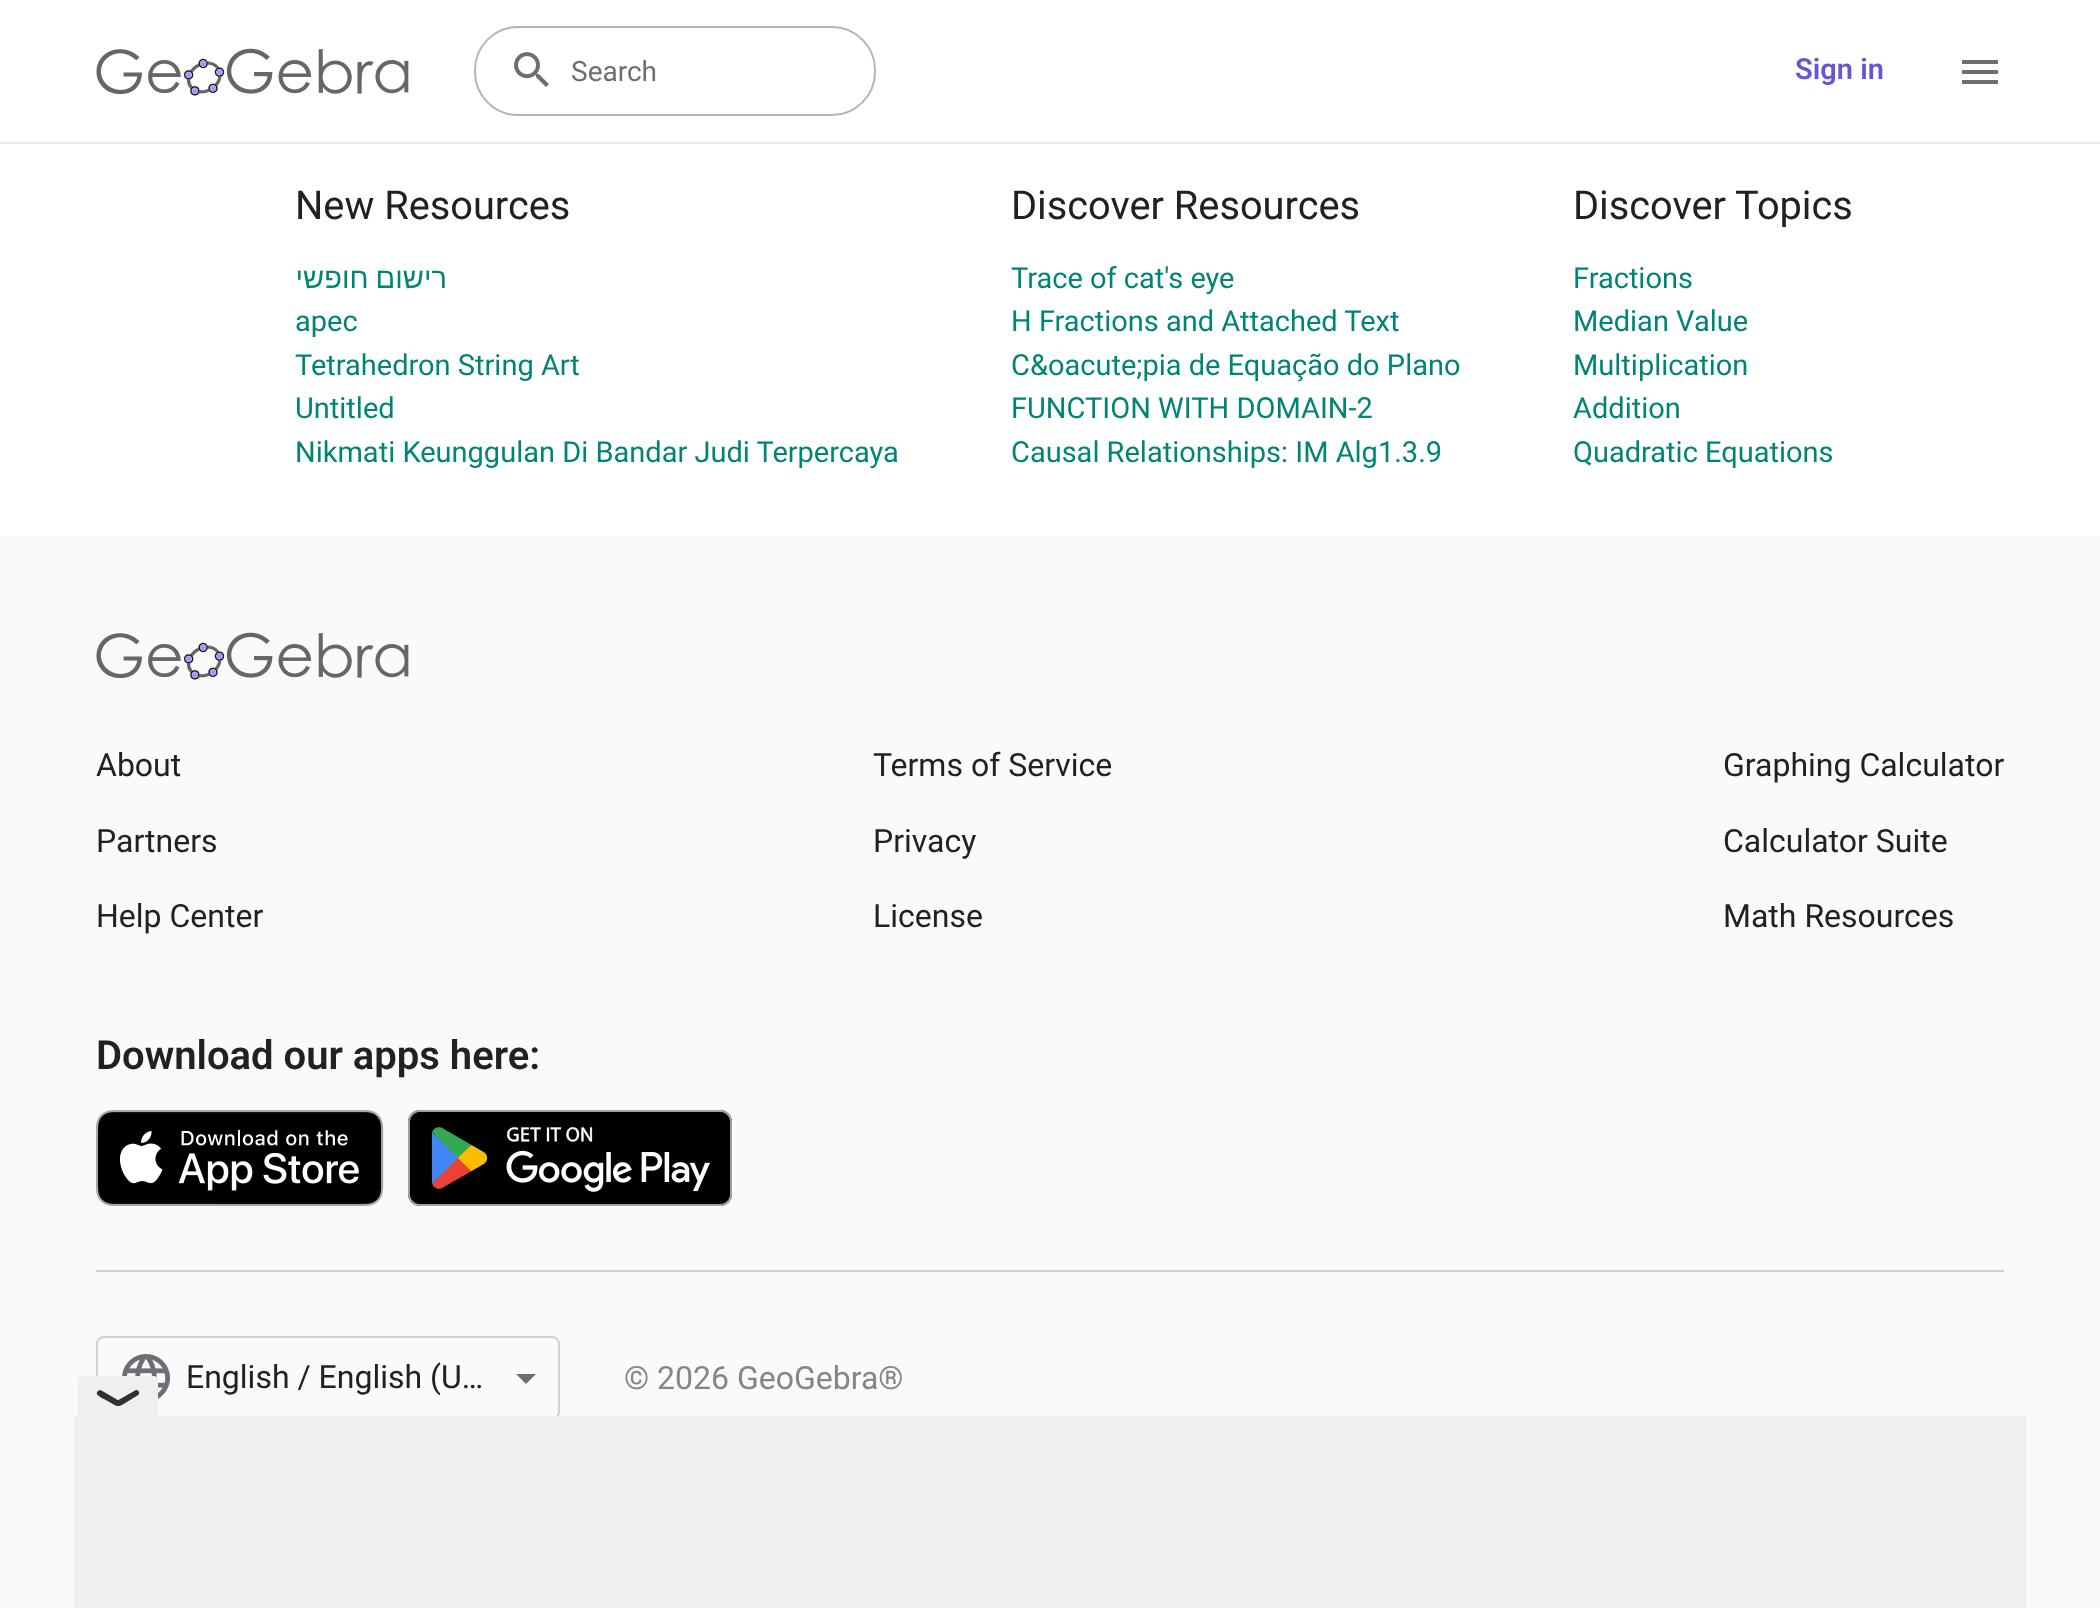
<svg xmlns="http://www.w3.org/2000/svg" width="2100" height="1608">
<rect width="100%" height="100%" fill="#fff"/>
<rect y="142" width="2100" height="2" fill="#e6e6eb"/>
<image x="96" y="48" width="313" height="48" href="media/1.png"/>
<rect x="475" y="27" width="400" height="88" rx="43" fill="none" stroke="#b4b3ba" stroke-width="2"/>
<image x="514" y="52" width="35" height="35" href="media/2.png"/>
<text x="571" y="81" style="font-family:Roboto;font-size:28px;fill:#6e6d73">Search</text>
<text x="1795" y="79" style="font-family:Roboto;font-size:29px;font-weight:600;fill:#6557d2">Sign in</text>
<image x="1962" y="60" width="36" height="24" href="media/3.png"/>
<text x="295" y="219" style="font-family:Roboto;font-size:39.75px;fill:#212121">New Resources</text>
<text x="447" y="288" word-spacing="-1" style="font-family:Liberation Sans;font-size:29px;direction:rtl;fill:#008475">רישום חופשי</text>
<text x="295" y="331" style="font-family:Roboto;font-size:29px;fill:#008475">apec</text>
<text x="295" y="375" style="font-family:Roboto;font-size:29px;fill:#008475">Tetrahedron String Art</text>
<text x="295" y="418" style="font-family:Roboto;font-size:29px;fill:#008475">Untitled</text>
<text x="295" y="462" style="font-family:Roboto;font-size:29px;fill:#008475">Nikmati Keunggulan Di Bandar Judi Terpercaya</text>
<text x="1011" y="219" style="font-family:Roboto;font-size:39.75px;fill:#212121">Discover Resources</text>
<text x="1011" y="288" style="font-family:Roboto;font-size:29px;fill:#008475">Trace of cat's eye</text>
<text x="1011" y="331" style="font-family:Roboto;font-size:29px;fill:#008475">H Fractions and Attached Text</text>
<text x="1011" y="375" style="font-family:Roboto;font-size:29px;fill:#008475">C&amp;oacute;pia de Equação do Plano</text>
<text x="1011" y="418" style="font-family:Roboto;font-size:29px;fill:#008475">FUNCTION WITH DOMAIN-2</text>
<text x="1011" y="462" style="font-family:Roboto;font-size:29px;fill:#008475">Causal Relationships: IM Alg1.3.9</text>
<text x="1573" y="219" style="font-family:Roboto;font-size:39.75px;fill:#212121">Discover Topics</text>
<text x="1573" y="288" style="font-family:Roboto;font-size:29px;fill:#008475">Fractions</text>
<text x="1573" y="331" style="font-family:Roboto;font-size:29px;fill:#008475">Median Value</text>
<text x="1573" y="375" style="font-family:Roboto;font-size:29px;fill:#008475">Multiplication</text>
<text x="1573" y="418" style="font-family:Roboto;font-size:29px;fill:#008475">Addition</text>
<text x="1573" y="462" style="font-family:Roboto;font-size:29px;fill:#008475">Quadratic Equations</text>
<rect y="536" width="2100" height="1072" fill="#fafafc"/>
<image x="96" y="632" width="313" height="48" href="media/4.png"/>
<text x="96" y="776" style="font-family:Roboto;font-size:32px;fill:#212121">About</text>
<text x="96" y="852" style="font-family:Roboto;font-size:32px;fill:#212121">Partners</text>
<text x="96" y="927" style="font-family:Roboto;font-size:32px;fill:#212121">Help Center</text>
<text x="873" y="776" style="font-family:Roboto;font-size:32px;fill:#212121">Terms of Service</text>
<text x="873" y="852" style="font-family:Roboto;font-size:32px;fill:#212121">Privacy</text>
<text x="873" y="927" style="font-family:Roboto;font-size:32px;fill:#212121">License</text>
<text x="1723" y="776" style="font-family:Roboto;font-size:32px;fill:#212121">Graphing Calculator</text>
<text x="1723" y="852" style="font-family:Roboto;font-size:32px;fill:#212121">Calculator Suite</text>
<text x="1723" y="927" style="font-family:Roboto;font-size:32px;fill:#212121">Math Resources</text>
<text x="96" y="1069" style="font-family:Roboto;font-size:40px;font-weight:600;fill:#212121">Download our apps here:</text>
<image x="96" y="1110" width="288" height="96" href="media/5.png"/>
<image x="408" y="1110" width="324" height="96" href="media/6.png"/>
<rect x="96" y="1270" width="1908" height="2" fill="#d1d0d6"/>
<rect x="97" y="1337" width="462" height="82" rx="7" fill="none" stroke="#d1d0d6" stroke-width="2"/>
<image x="122" y="1354" width="48" height="45" href="media/7.png"/>
<text x="186" y="1388" style="font-family:Roboto;font-size:32px;fill:#212121">English / English (U…</text>
<path d="M516 1374l10 10l10-10z" fill="#6e6d73"/>
<text x="624" y="1389" style="font-family:Roboto;font-size:32px;fill:#85848a">© 2026 GeoGebra®</text>
<path d="M82 1376h72c2 0 4 2 4 4v36h-80v-36c0-2 2-4 4-4z" fill="#efefef"/>
<path d="M101.5 1390.5l18 10.5c2 3-1 6-4 4.5l-11.5-6.5c-2-1-5-2.5-6.5-4c-2-2.5 1-6 4-4.5z" fill="#313131"/>
<path d="M117.5 1400.5l18.5-10.5c3-.5 4.5 4 1.5 5.5l-11.5 7c-2 1-4.5 3-7 3.5c-3 .5-4.5-4-1.5-5.5z" fill="#313131"/>
<rect x="74" y="1416" width="1952" height="192" fill="#efefef"/>
</svg>
